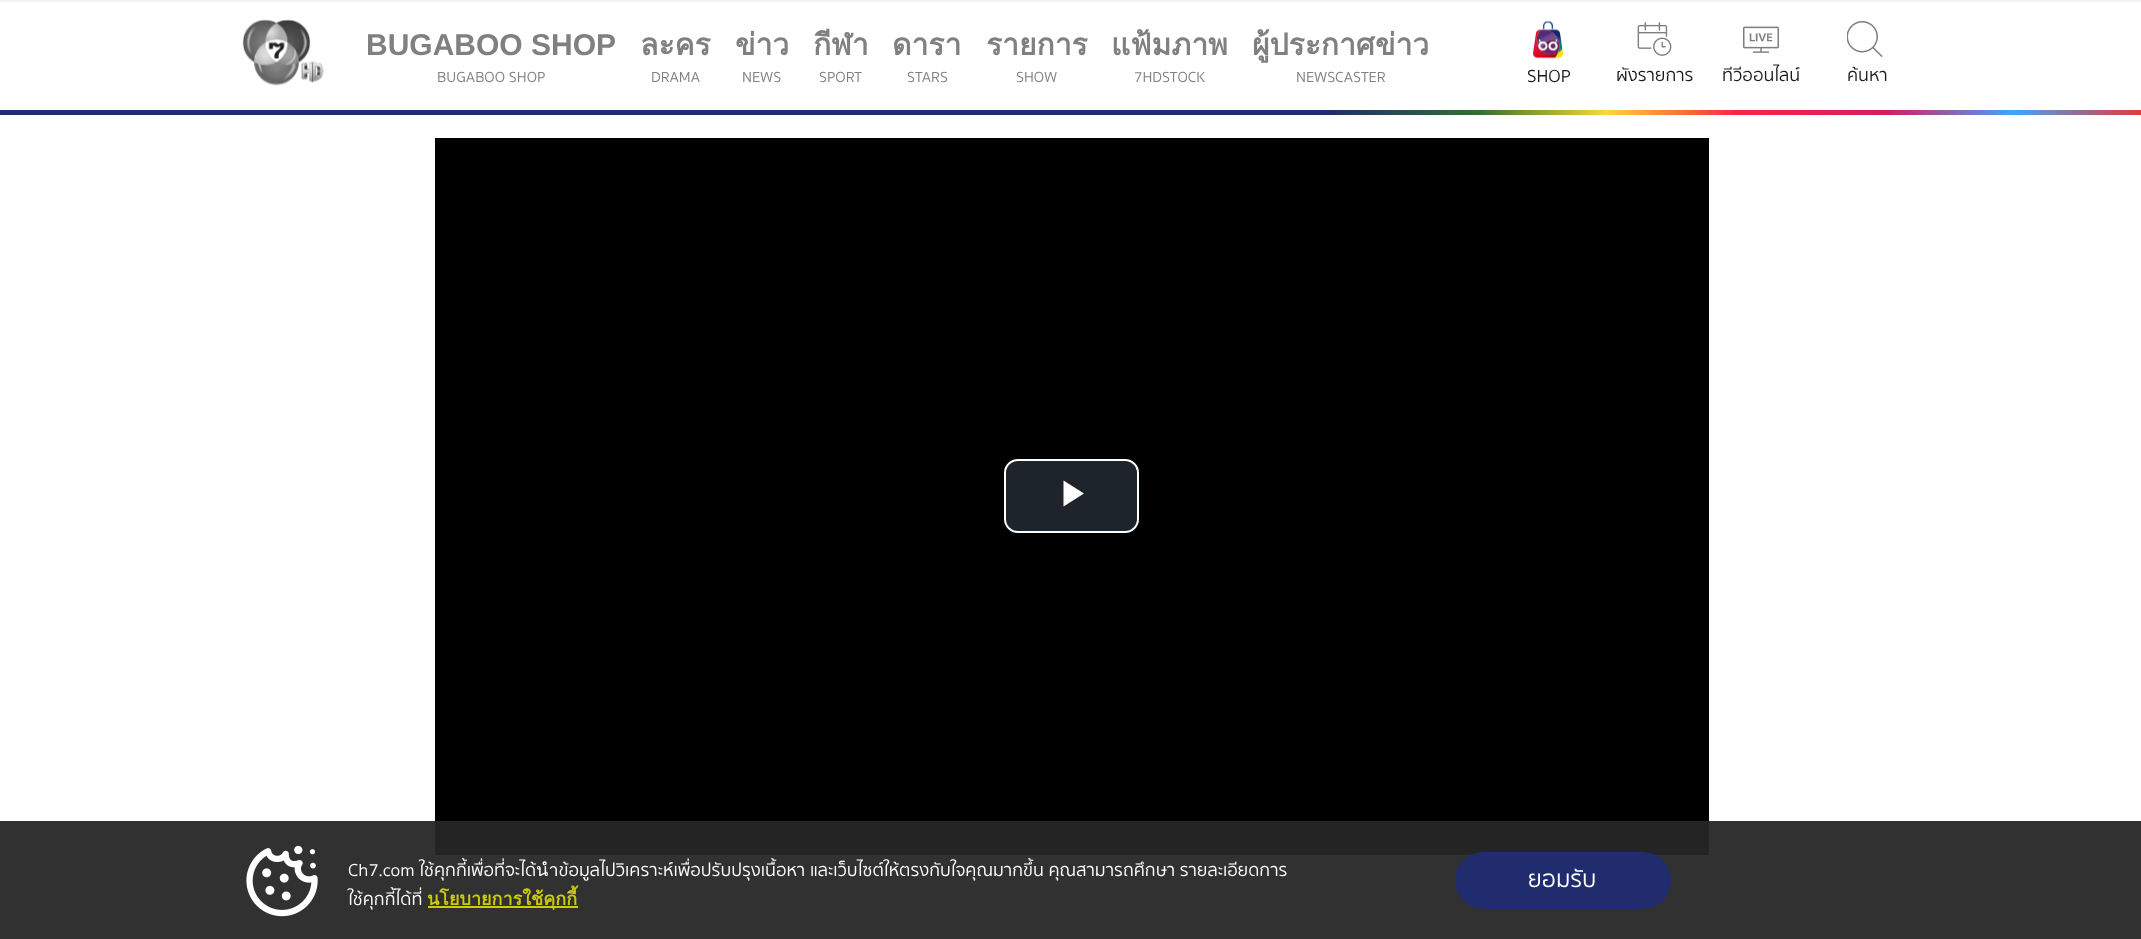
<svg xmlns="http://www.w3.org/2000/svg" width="2141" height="939">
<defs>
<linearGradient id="g1" gradientUnits="userSpaceOnUse" x1="0" y1="112" x2="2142" y2="112"><stop offset="0" stop-color="#212c6f"/><stop offset="0.62" stop-color="#212c6f"/><stop offset="0.69" stop-color="#2e7031"/><stop offset="0.75" stop-color="#fdd835"/><stop offset="0.81" stop-color="#f92644"/><stop offset="0.88" stop-color="#d81b60"/><stop offset="0.94" stop-color="#42a5f5"/><stop offset="1" stop-color="#e53935"/></linearGradient>
</defs>
<rect width="100%" height="100%" fill="#f2f4f8"/>
<rect y="2" width="2141" height="108" fill="#fff"/>
<image x="242" y="19" width="82" height="67" href="media/1.png"/>
<text x="366" y="55" style="font-family:Liberation Sans;font-size:30px;font-weight:bold;fill:#808080">BUGABOO SHOP</text>
<text x="437" y="82" style="font-family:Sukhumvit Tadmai;font-size:15px;fill:#808080">BUGABOO SHOP</text>
<text x="640" y="55" style="font-family:Loma;font-size:30px;font-weight:bold;fill:#808080">ละคร</text>
<text x="651" y="82" style="font-family:Sukhumvit Tadmai;font-size:15px;fill:#808080">DRAMA</text>
<text x="735" y="55" style="font-family:Loma;font-size:30px;font-weight:bold;fill:#808080">ข่าว</text>
<text x="742" y="82" style="font-family:Sukhumvit Tadmai;font-size:15px;fill:#808080">NEWS</text>
<text x="813" y="55" style="font-family:Loma;font-size:30px;font-weight:bold;fill:#808080">กีฬา</text>
<text x="819" y="82" style="font-family:Sukhumvit Tadmai;font-size:15px;fill:#808080">SPORT</text>
<text x="892" y="55" style="font-family:Loma;font-size:30px;font-weight:bold;fill:#808080">ดารา</text>
<text x="907" y="82" style="font-family:Sukhumvit Tadmai;font-size:15px;fill:#808080">STARS</text>
<text x="986" y="55" style="font-family:Loma;font-size:30px;font-weight:bold;fill:#808080">รายการ</text>
<text x="1016" y="82" style="font-family:Sukhumvit Tadmai;font-size:15px;fill:#808080">SHOW</text>
<text x="1111" y="55" style="font-family:Loma;font-size:30px;font-weight:bold;fill:#808080">แฟ้มภาพ</text>
<text x="1134" y="82" style="font-family:Sukhumvit Tadmai;font-size:15px;fill:#808080">7HDSTOCK</text>
<text x="1252" y="55" style="font-family:Loma;font-size:30px;font-weight:bold;fill:#808080">ผู้ประกาศข่าว</text>
<text x="1296" y="82" style="font-family:Sukhumvit Tadmai;font-size:15px;fill:#808080">NEWSCASTER</text>
<image x="1533" y="21" width="30" height="38" href="media/2.png"/>
<text x="1527" y="82" style="font-family:Sukhumvit Tadmai;font-size:18px;fill:#1a1a1a">SHOP</text>
<image x="1637" y="22" width="35" height="34" href="media/3.png"/>
<text x="1616" y="81" style="font-family:Sukhumvit Tadmai;font-size:18px;fill:#1a1a1a">ผังรายการ</text>
<image x="1743" y="26" width="36" height="27" href="media/4.png"/>
<text x="1722" y="81" style="font-family:Sukhumvit Tadmai;font-size:18px;fill:#1a1a1a">ทีวีออนไลน์</text>
<image x="1847" y="21" width="36" height="36" href="media/5.png"/>
<text x="1847" y="81" style="font-family:Sukhumvit Tadmai;font-size:18px;fill:#1a1a1a">ค้นหา</text>
<rect y="110" width="2141" height="5" fill="url(#g1)"/>
<rect y="115" width="2141" height="706" fill="#fff"/>
<rect y="821" width="2141" height="118" fill="#313131"/>
<rect x="435" y="138" width="1274" height="683" fill="#000"/>
<rect x="435" y="821" width="1274" height="34" fill="#242424"/>
<rect x="1005" y="460" width="133" height="72" rx="13" fill="#1e242c" stroke="#fff" stroke-width="2"/>
<path d="M1063.5 480.5v26l20.5-13z" fill="#fff"/>
<image x="246" y="845" width="72" height="72" href="media/6.png"/>
<text x="348" y="876" style="font-family:Sukhumvit Tadmai;font-size:18px;fill:#fff">Ch7.com ใช้คุกกี้เพื่อที่จะได้นำข้อมูลไปวิเคราะห์เพื่อปรับปรุงเนื้อหา และเว็บไซต์ให้ตรงกับใจคุณมากขึ้น คุณสามารถศึกษา รายละเอียดการ</text>
<text x="348" y="905" style="font-family:Sukhumvit Tadmai;font-size:18px;fill:#fff">ใช้คุกกี้ได้ที่</text>
<rect x="428" y="906" width="150" height="2" fill="#cccc09"/>
<text x="427" y="905" style="font-family:Loma;font-size:18px;font-weight:bold;fill:#cccc09">นโยบายการใช้คุกกี้</text>
<rect x="1456" y="853" width="214" height="55" rx="27.5" fill="#212c6f" stroke="#212c6f" stroke-width="2"/>
<text x="1528" y="887" style="font-family:Sukhumvit Tadmai;font-size:24px;fill:#fff">ยอมรับ</text>
</svg>
